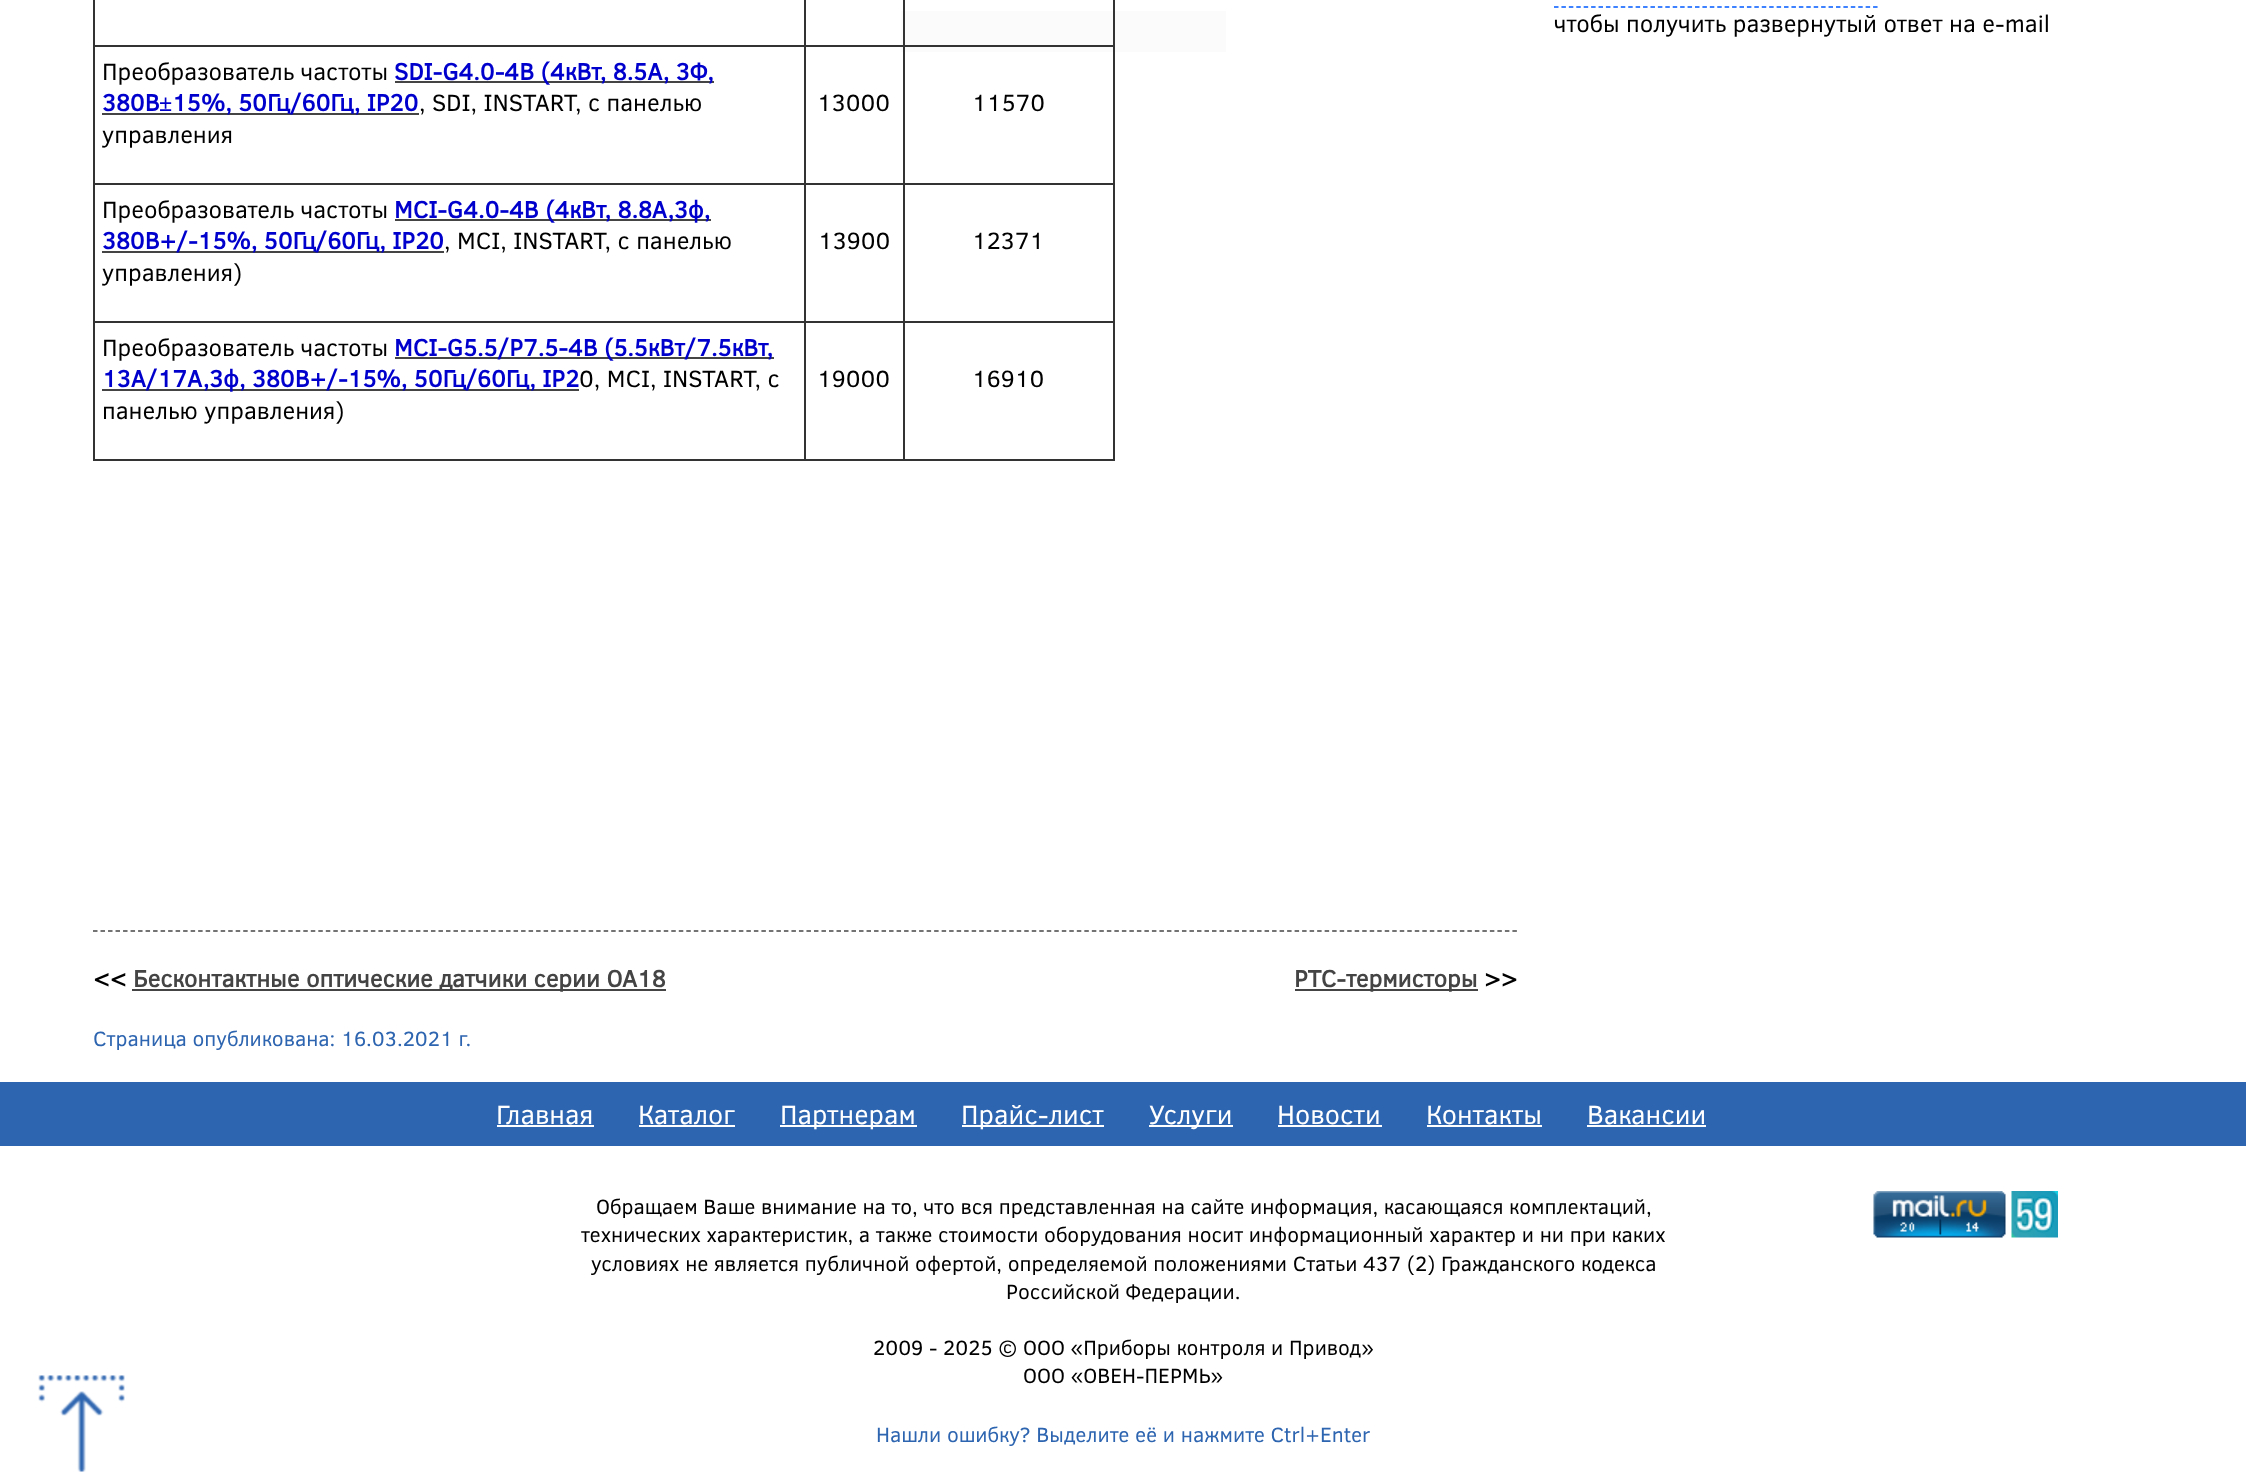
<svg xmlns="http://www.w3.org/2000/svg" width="2246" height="1477">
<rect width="100%" height="100%" fill="#fff"/>
<rect x="901" y="11" width="325" height="41" fill="#fbfbfb"/>
<path d="M1554 7h324" fill="none" stroke="#005aff" stroke-width="1.5" stroke-dasharray="4.5 2.92"/>
<text x="1554" y="32" style="font-family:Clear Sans;font-size:24px;fill:#000">чтобы получить развернутый ответ на e-mail</text>
<rect x="903" y="45" width="212" height="2" fill="#333"/>
<rect x="903" y="183" width="212" height="2" fill="#333"/>
<rect x="903" y="321" width="212" height="2" fill="#333"/>
<rect x="1113" y="321" width="2" height="140" fill="#333"/>
<rect x="903" y="459" width="212" height="2" fill="#333"/>
<rect x="903" y="321" width="2" height="140" fill="#333"/>
<rect x="804" y="321" width="101" height="2" fill="#333"/>
<rect x="903" y="183" width="2" height="140" fill="#333"/>
<rect x="804" y="183" width="101" height="2" fill="#333"/>
<rect x="903" y="45" width="2" height="140" fill="#333"/>
<rect x="804" y="45" width="101" height="2" fill="#333"/>
<rect x="804" y="459" width="101" height="2" fill="#333"/>
<rect x="804" y="321" width="2" height="140" fill="#333"/>
<rect x="93" y="321" width="713" height="2" fill="#333"/>
<rect x="804" y="183" width="2" height="140" fill="#333"/>
<rect x="93" y="183" width="713" height="2" fill="#333"/>
<rect x="804" y="45" width="2" height="140" fill="#333"/>
<rect x="93" y="45" width="713" height="2" fill="#333"/>
<rect x="804" width="2" height="47" fill="#333"/>
<rect x="903" width="2" height="47" fill="#333"/>
<rect x="93" y="459" width="713" height="2" fill="#333"/>
<rect x="93" y="321" width="2" height="140" fill="#333"/>
<rect x="93" y="183" width="2" height="140" fill="#333"/>
<rect x="93" width="2" height="185" fill="#333"/>
<text x="102" y="80" style="font-family:Clear Sans;font-size:24px;fill:#000">Преобразователь частоты</text>
<rect x="395" y="81" width="319" height="2" fill="#444"/>
<text x="394" y="80" style="font-family:Clear Sans;font-size:24px;font-weight:bold;fill:#0000cd">SDI-G4.0-4B (4кВт, 8.5А, 3Ф,</text>
<text x="102" y="111" style="font-family:Clear Sans;font-size:24px;font-weight:bold;fill:#0000cd">380В</text>
<text x="159" y="111" style="font-family:Liberation Serif;font-size:24px;font-weight:bold;fill:#0000cd">±</text>
<rect x="102" y="113" width="317" height="2" fill="#444"/>
<text x="172" y="111" style="font-family:Clear Sans;font-size:24px;font-weight:bold;fill:#0000cd">15%, 50Гц/60Гц, IP20</text>
<text x="419" y="111" style="font-family:Clear Sans;font-size:24px;fill:#000">, SDI, INSTART, с панелью</text>
<text x="102" y="143" style="font-family:Clear Sans;font-size:24px;fill:#000">управления</text>
<text x="817" y="111" style="font-family:Clear Sans;font-size:24px;fill:#000">13000</text>
<rect x="1113" y="183" width="2" height="140" fill="#333"/>
<rect x="1113" width="2" height="185" fill="#333"/>
<text x="972" y="111" style="font-family:Clear Sans;font-size:24px;fill:#000">11570</text>
<text x="102" y="218" style="font-family:Clear Sans;font-size:24px;fill:#000">Преобразователь частоты</text>
<rect x="395" y="219" width="316" height="2" fill="#444"/>
<text x="394" y="218" style="font-family:Clear Sans;font-size:24px;font-weight:bold;fill:#0000cd">MCI-G4.0-4B (4кВт, 8.8А,3ф,</text>
<rect x="102" y="251" width="342" height="2" fill="#444"/>
<text x="102" y="249" style="font-family:Clear Sans;font-size:24px;font-weight:bold;fill:#0000cd">380В+/-15%, 50Гц/60Гц, IP20</text>
<text x="444" y="249" style="font-family:Clear Sans;font-size:24px;fill:#000">, MCI, INSTART, с панелью</text>
<text x="102" y="281" style="font-family:Clear Sans;font-size:24px;fill:#000">управления)</text>
<text x="818" y="249" style="font-family:Clear Sans;font-size:24px;fill:#000">13900</text>
<text x="972" y="249" style="font-family:Clear Sans;font-size:24px;fill:#000">12371</text>
<text x="102" y="356" style="font-family:Clear Sans;font-size:24px;fill:#000">Преобразователь частоты</text>
<rect x="395" y="357" width="379" height="2" fill="#444"/>
<text x="394" y="356" style="font-family:Clear Sans;font-size:24px;font-weight:bold;fill:#0000cd">MCI-G5.5/P7.5-4B (5.5кВт/7.5кВт,</text>
<rect x="102" y="389" width="477" height="2" fill="#444"/>
<text x="102" y="387" style="font-family:Clear Sans;font-size:24px;font-weight:bold;fill:#0000cd">13А/17А,3ф, 380В+/-15%, 50Гц/60Гц, IP2</text>
<text x="579" y="387" style="font-family:Clear Sans;font-size:24px;fill:#000">0, MCI, INSTART, с</text>
<text x="102" y="419" style="font-family:Clear Sans;font-size:24px;fill:#000">панелью управления)</text>
<text x="817" y="387" style="font-family:Clear Sans;font-size:24px;fill:#000">19000</text>
<text x="972" y="387" style="font-family:Clear Sans;font-size:24px;fill:#000">16910</text>
<path d="M93 931h1425" fill="none" stroke="#464646" stroke-width="1.5" stroke-dasharray="4.5 3.01"/>
<text x="93" y="987" style="font-family:Clear Sans;font-size:24px;font-weight:bold;fill:#000">&lt;&lt;</text>
<rect x="132" y="989" width="534" height="2" fill="#444"/>
<text x="133" y="987" style="font-family:Clear Sans;font-size:24px;font-weight:bold;fill:#444">Бесконтактные оптические датчики серии OA18</text>
<rect x="1295" y="989" width="183" height="2" fill="#444"/>
<text x="1294" y="987" style="font-family:Clear Sans;font-size:24px;font-weight:bold;fill:#444">РТС-термисторы</text>
<text x="1484" y="987" style="font-family:Clear Sans;font-size:24px;font-weight:bold;fill:#000">&gt;&gt;</text>
<text x="93" y="1046" style="font-family:Clear Sans;font-size:21px;fill:#2e65b0">Страница опубликована: 16.03.2021 г.</text>
<rect y="1082" width="2246" height="64" fill="#2e65b0"/>
<text x="496" y="1124" style="font-family:Clear Sans;font-size:27px;fill:#fff">Главная</text>
<rect x="497" y="1125" width="97" height="2" fill="#fff"/>
<text x="638" y="1124" style="font-family:Clear Sans;font-size:27px;fill:#fff">Каталог</text>
<rect x="639" y="1125" width="96" height="2" fill="#fff"/>
<rect x="780" y="1125" width="137" height="2" fill="#fff"/>
<text x="780" y="1124" style="font-family:Clear Sans;font-size:27px;fill:#fff">Партнерам</text>
<rect x="962" y="1125" width="142" height="2" fill="#fff"/>
<text x="961" y="1124" style="font-family:Clear Sans;font-size:27px;fill:#fff">Прайс-лист</text>
<rect x="1149" y="1125" width="84" height="2" fill="#fff"/>
<text x="1149" y="1124" style="font-family:Clear Sans;font-size:27px;fill:#fff">Услуги</text>
<text x="1277" y="1124" style="font-family:Clear Sans;font-size:27px;fill:#fff">Новости</text>
<rect x="1278" y="1125" width="104" height="2" fill="#fff"/>
<text x="1426" y="1124" style="font-family:Clear Sans;font-size:27px;fill:#fff">Контакты</text>
<rect x="1427" y="1125" width="115" height="2" fill="#fff"/>
<text x="1587" y="1124" style="font-family:Clear Sans;font-size:27px;fill:#fff">Вакансии</text>
<rect x="1587" y="1125" width="119" height="2" fill="#fff"/>
<image x="38" y="1375" width="87" height="97" href="media/1.png"/>
<text x="596" y="1214" style="font-family:Clear Sans;font-size:21px;fill:#000">Обращаем Ваше внимание на то, что вся представленная на сайте информация, касающаяся комплектаций,</text>
<text x="581" y="1242" style="font-family:Clear Sans;font-size:21px;fill:#000">технических характеристик, а также стоимости оборудования носит информационный характер и ни при каких</text>
<text x="591" y="1271" style="font-family:Clear Sans;font-size:21px;fill:#000">условиях не является публичной офертой, определяемой положениями Статьи 437 (2) Гражданского кодекса</text>
<text x="1006" y="1299" style="font-family:Clear Sans;font-size:21px;fill:#000">Российской Федерации.</text>
<text x="873" y="1355" style="font-family:Clear Sans;font-size:21px;fill:#000">2009 - 2025 © ООО «Приборы контроля и Привод»</text>
<text x="1023" y="1383" style="font-family:Clear Sans;font-size:21px;fill:#000">ООО «ОВЕН-ПЕРМЬ»</text>
<text x="876" y="1442" style="font-family:Clear Sans;font-size:21px;fill:#2e65b0">Нашли ошибку? Выделите её и нажмите Ctrl+Enter</text>
<image x="1873" y="1191" width="133" height="47" href="media/2.png"/>
<image x="2011" y="1191" width="47" height="47" href="media/3.png"/>
</svg>
